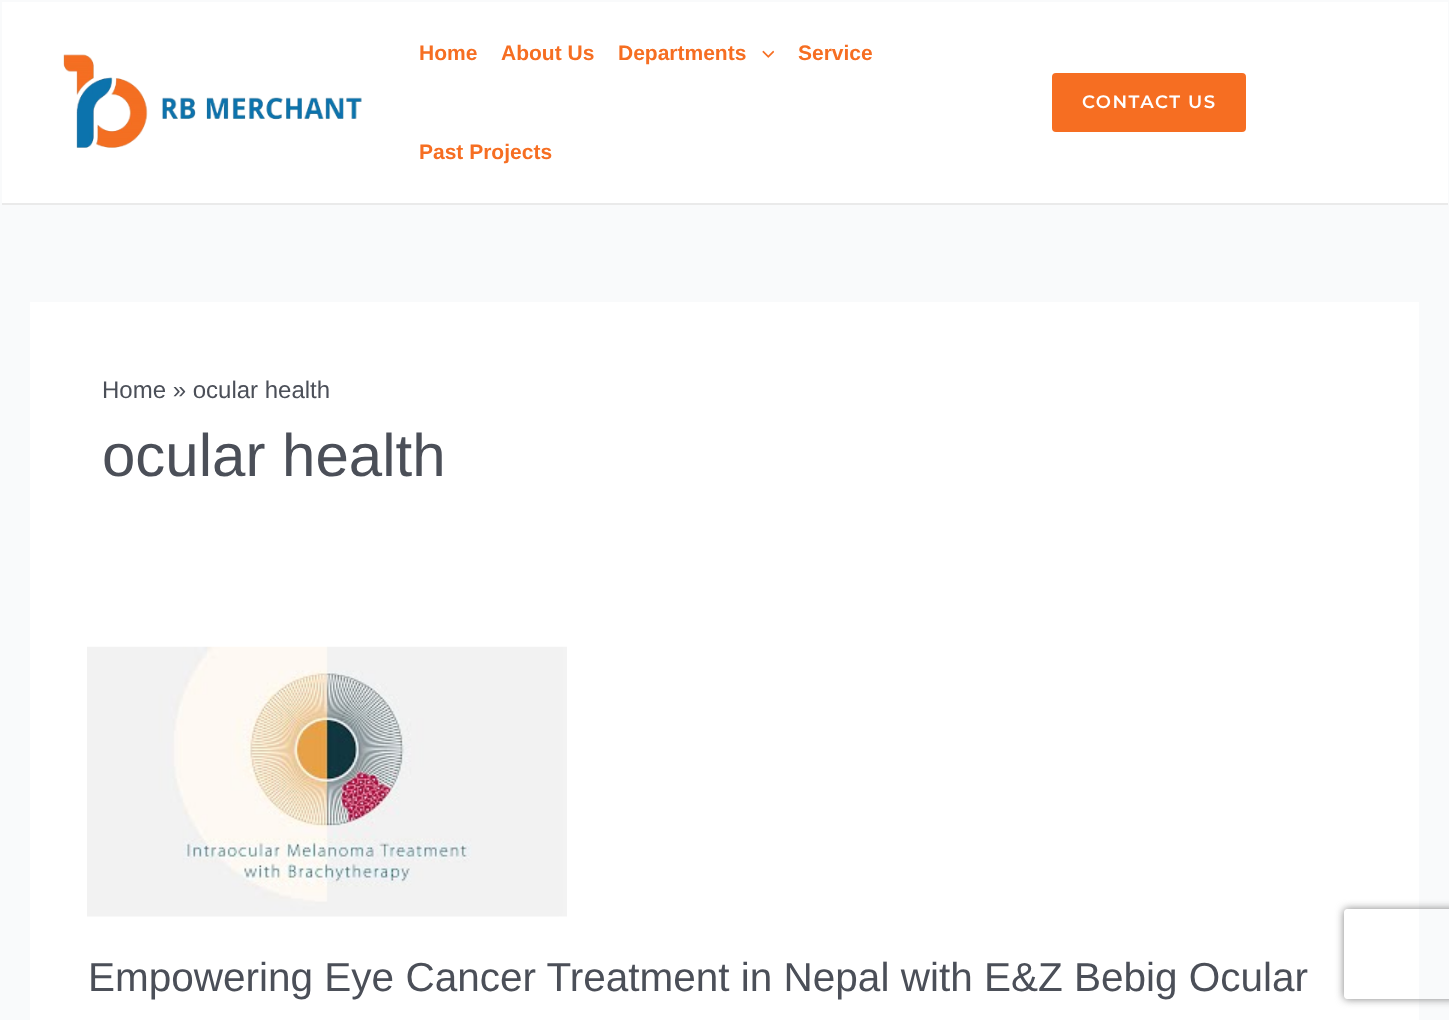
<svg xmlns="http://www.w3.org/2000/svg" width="1449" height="1020">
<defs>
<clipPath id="clip1"><path d="M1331 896h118v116h-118zm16 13h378c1.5 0 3 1.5 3 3v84c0 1.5-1.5 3-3 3h-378c-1.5 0-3-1.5-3-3v-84c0-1.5 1.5-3 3-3z" clip-rule="evenodd"/></clipPath>
</defs>
<rect width="100%" height="100%" fill="#f9fafb"/>
<rect x="2" y="2" width="1446" height="201" fill="#fff"/>
<rect x="2" y="203" width="1446" height="2" fill="#eaeaea"/>
<image x="63" y="54" width="299" height="94" href="media/1.png"/>
<text x="419" y="60" style="font-family:Liberation Sans;font-size:21px;font-weight:bold;fill:#f66e22">Home</text>
<text x="501" y="60" style="font-family:Liberation Sans;font-size:21px;font-weight:bold;fill:#f66e22">About Us</text>
<text x="618" y="60" style="font-family:Liberation Sans;font-size:21px;font-weight:bold;fill:#f66e22">Departments</text>
<image x="762" y="50" width="12" height="8" href="media/2.png"/>
<text x="798" y="60" style="font-family:Liberation Sans;font-size:21px;font-weight:bold;fill:#f66e22">Service</text>
<text x="419" y="159" style="font-family:Liberation Sans;font-size:21px;font-weight:bold;fill:#f66e22">Past Projects</text>
<rect x="1051" y="72" width="196" height="61" rx="5" fill="#f66e22" stroke="#fff" stroke-width="2"/>
<text x="1082" y="108" style="font-family:Montserrat;font-size:18px;font-weight:100;letter-spacing:1.5px;fill:#fff">CONTACT US</text>
<rect x="30" y="302" width="1389" height="718" fill="#fff"/>
<text x="102" y="398" style="font-family:Liberation Sans;font-size:24px;fill:#4b4f58">Home » ocular health</text>
<text x="102" y="476" style="font-family:Liberation Sans;font-size:60px;fill:#4b4f58">ocular health</text>
<image x="87" y="646" width="480" height="271" href="media/3.png"/>
<text x="88" y="991" style="font-family:Liberation Sans;font-size:40.5px;fill:#4b4f58">Empowering Eye Cancer Treatment in Nepal with E&amp;Z Bebig Ocular</text>
<g clip-path="url(#clip1)">
<rect x="1344" y="909" width="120" height="90" rx="3" fill="#808080" filter="blur(4px)"/>
</g>
</svg>
